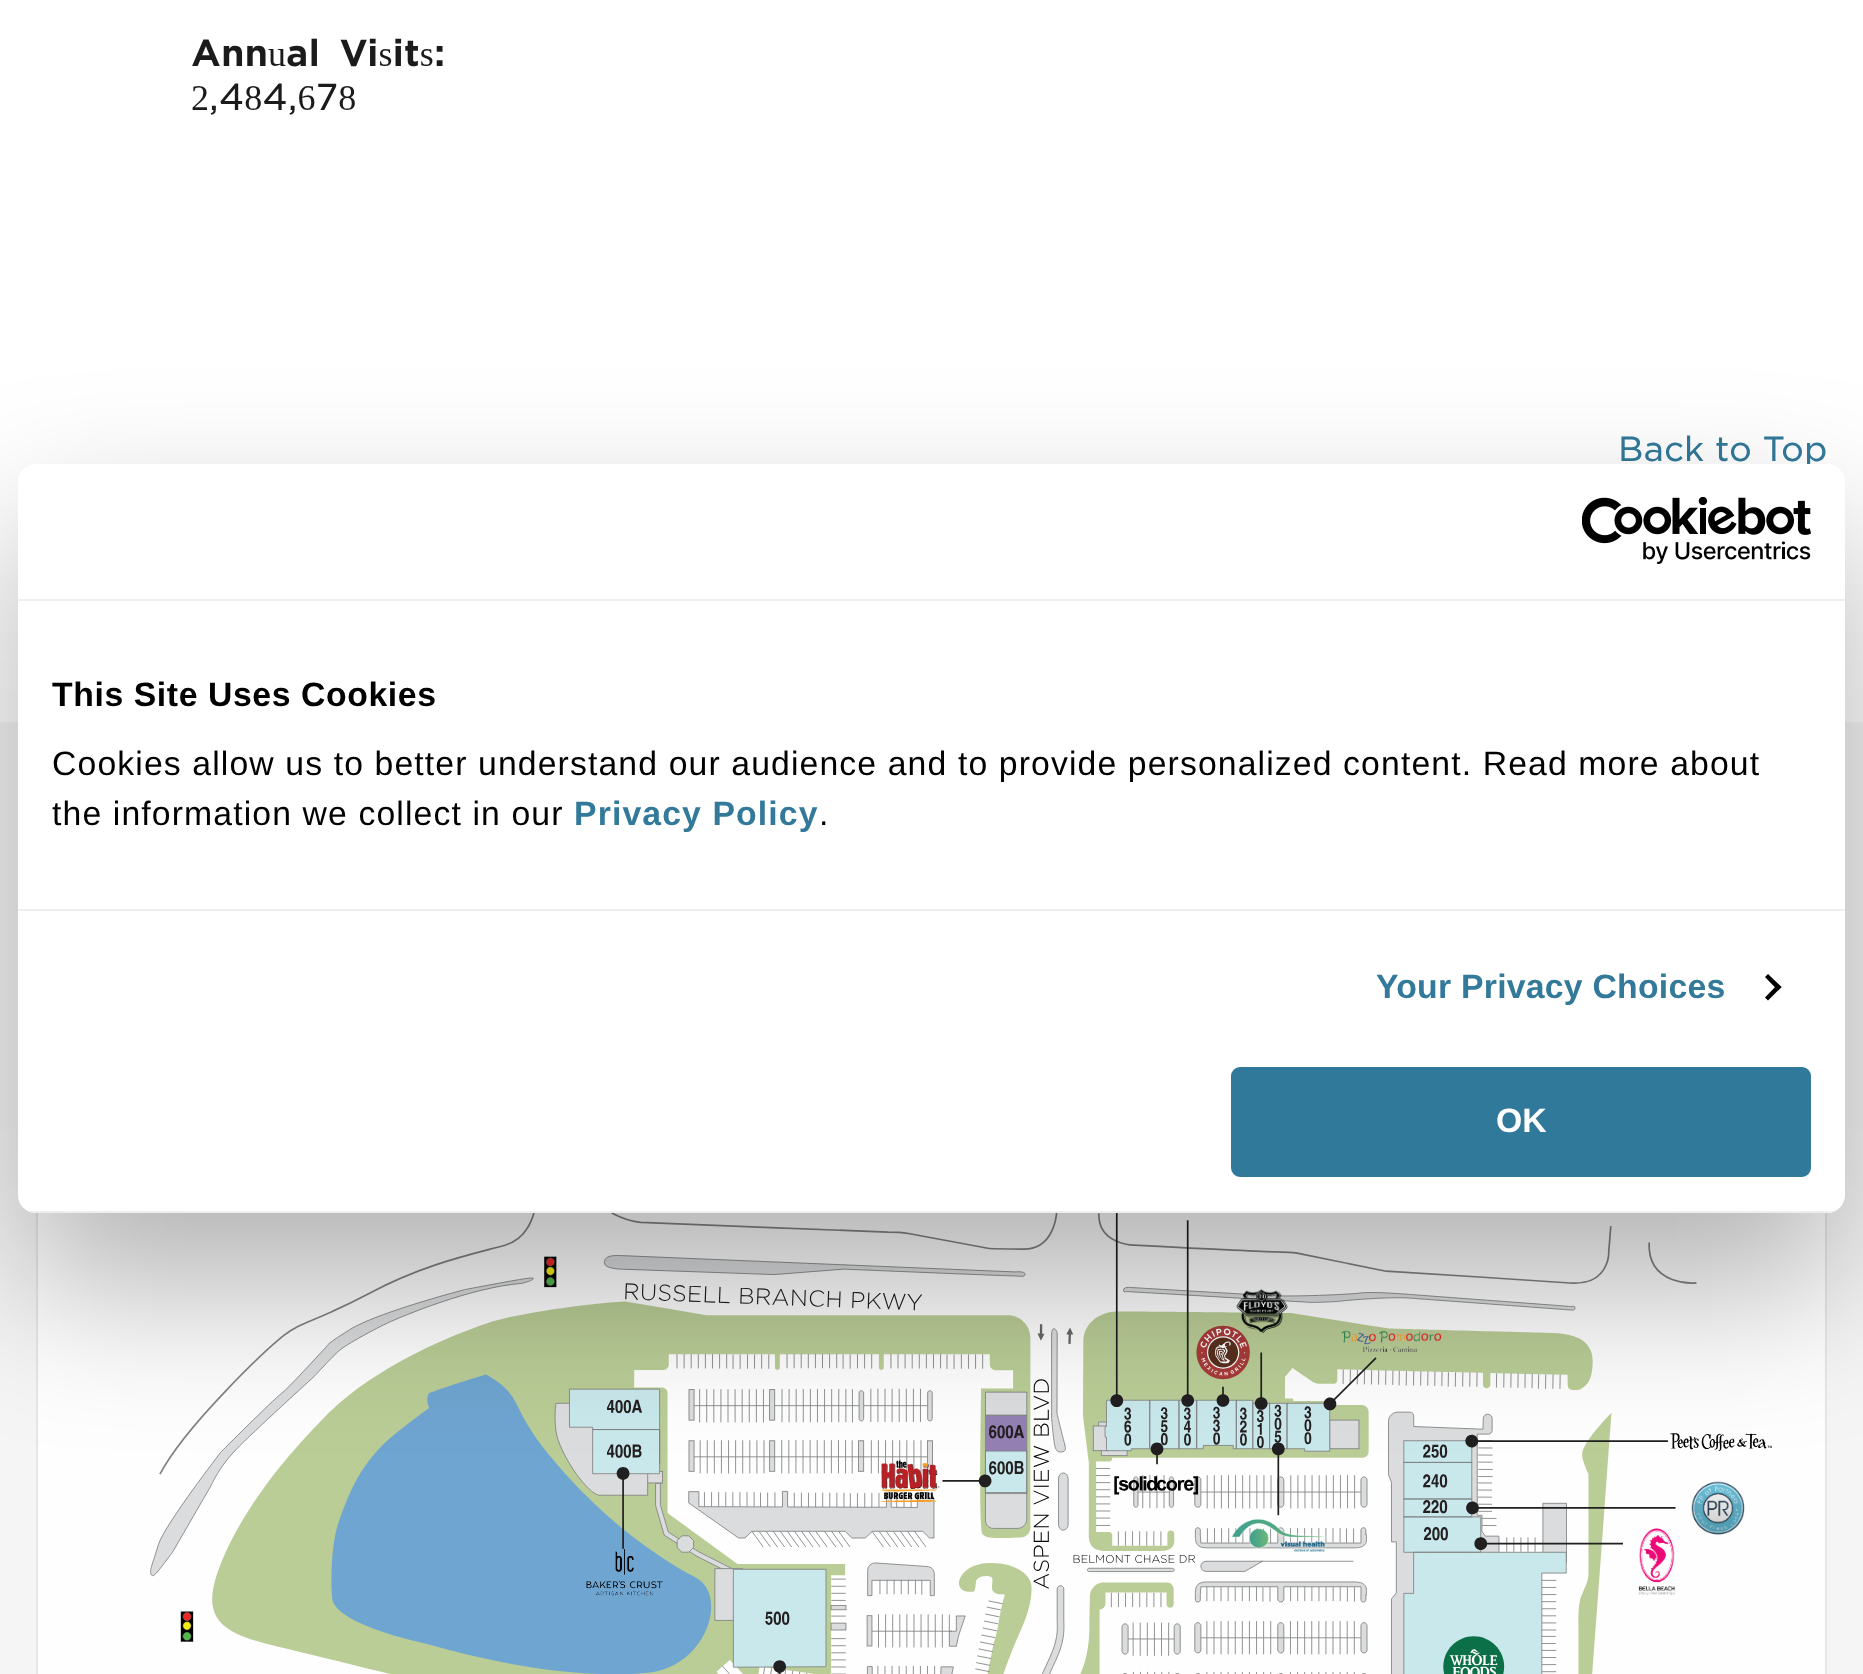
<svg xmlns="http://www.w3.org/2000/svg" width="1863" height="1674">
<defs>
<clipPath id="clip1"><rect x="18" y="464" width="1827" height="749" rx="18"/></clipPath>
</defs>
<rect width="100%" height="100%" fill="#fff"/>
<text x="191" y="66" word-spacing="8" style="font-family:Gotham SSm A;font-size:36px;fill:#1c1b1b">Annual Visits:</text>
<text x="191" y="110" style="font-family:Gotham SSm A;font-size:36px;font-weight:300;fill:#1c1b1b">2,484,678</text>
<text x="1618" y="461" style="font-family:Gotham SSm A;font-size:33.5px;font-weight:300;fill:#32799a">Back to Top</text>
<rect y="722" width="1863" height="952" fill="#f6f5f6"/>
<rect x="38" y="1213" width="1787" height="461" fill="#fefefe"/>
<rect x="37" y="935" width="1789" height="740" fill="none" stroke="#e6e6e6" stroke-width="2"/>
<image x="150" y="1213" width="1622" height="461" href="media/1.png"/>
<rect x="18" y="536" width="1827" height="749" rx="18" fill="#0000004d" filter="blur(76.5px)"/>
<rect x="18" y="464" width="1827" height="749" rx="18" fill="#fff"/>
<rect x="18" y="599" width="1827" height="2" fill="#eee"/>
<image x="1582" y="497" width="229" height="67" href="media/2.png"/>
<rect x="18" y="909" width="1827" height="2" fill="#eee"/>
<text x="52" y="706" style="font-family:Liberation Sans;font-size:33.75px;font-weight:bold;letter-spacing:0.6px;fill:#000">This Site Uses Cookies</text>
<text x="52" y="775" style="font-family:Liberation Sans;font-size:33.75px;letter-spacing:1.12px;fill:#000">Cookies allow us to better understand our audience and to provide personalized content. Read more about</text>
<text x="52" y="825" style="font-family:Liberation Sans;font-size:33.75px;letter-spacing:1.12px;fill:#000">the information we collect in our</text>
<text x="574" y="825" style="font-family:Liberation Sans;font-size:33.75px;font-weight:bold;letter-spacing:1.12px;fill:#32799a">Privacy Policy</text>
<text x="819" y="825" style="font-family:Liberation Sans;font-size:33.75px;letter-spacing:1.12px;fill:#000">.</text>
<text x="1376" y="998" style="font-family:Liberation Sans;font-size:33.75px;font-weight:bold;letter-spacing:0.25px;fill:#32799a">Your Privacy Choices</text>
<path d="M1768 974l13.5 13l-3.5 3.5l-13-13.5z" fill="#000"/>
<path d="M1778 984l3.5 3l-13.5 13.5l-3-3z" fill="#000"/>
<g clip-path="url(#clip1)">
<rect x="28" y="1211" width="1807" height="2" fill="#eee"/>
</g>
<rect x="1233.5" y="1069.5" width="575" height="105" rx="6.5" fill="#31799b" stroke="#31799b" stroke-width="5"/>
<text x="1496" y="1132" style="font-family:Liberation Sans;font-size:33.75px;font-weight:bold;fill:#fff">OK</text>
</svg>
